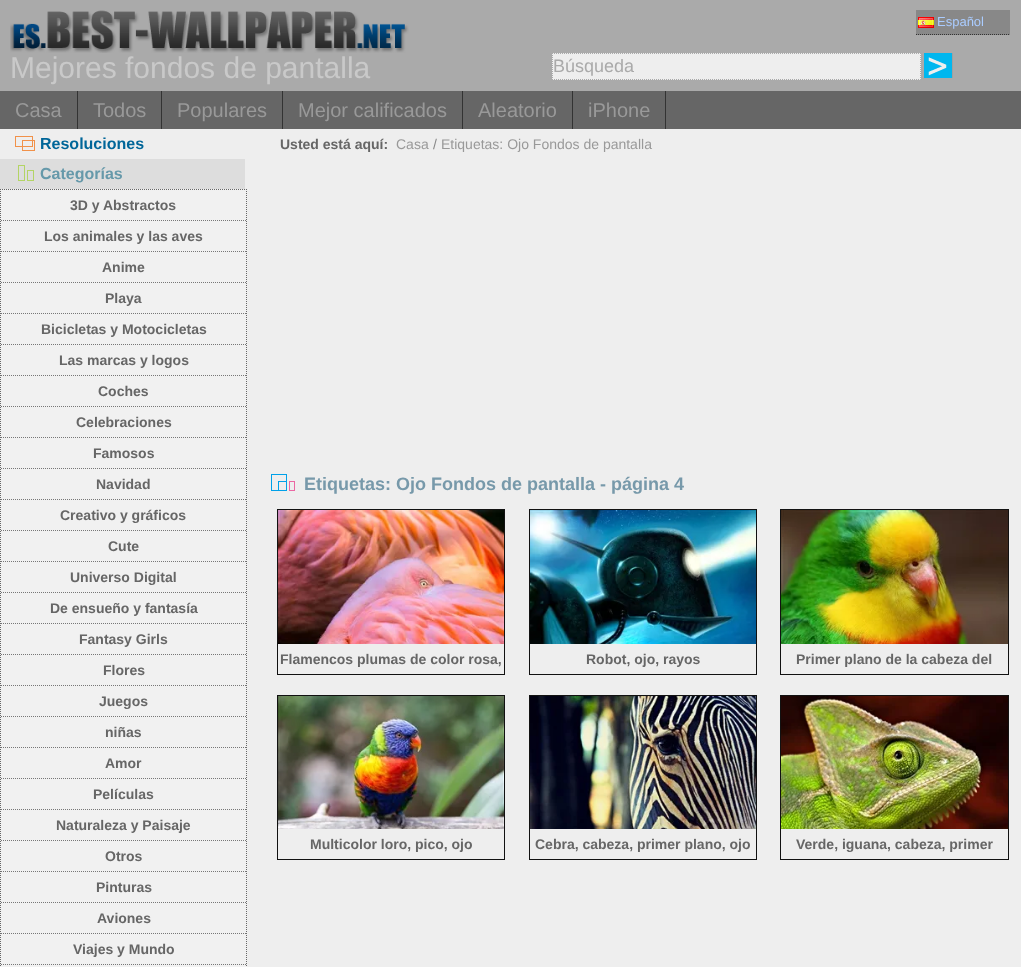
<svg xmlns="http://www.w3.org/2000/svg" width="1021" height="967">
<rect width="100%" height="100%" fill="#eee"/>
<rect width="1021" height="91" fill="#aaa"/>
<image x="10" y="10" width="399" height="43" href="media/1.png"/>
<rect x="916" y="10" width="94" height="25" fill="#888"/>
<path d="M916 34.5h94" fill="none" stroke="#333" stroke-dasharray="1 1"/>
<image x="918" y="17" width="16" height="11" href="media/2.png"/>
<text x="937" y="26" style="font-family:Liberation Sans;font-size:13px;fill:#acf">Español</text>
<text x="10" y="78" style="font-family:Liberation Sans;font-size:30px;fill:#c9c9c9">Mejores fondos de pantalla</text>
<rect x="552" y="53" width="369" height="27" fill="#eee"/>
<path d="M552 53.5h369" fill="none" stroke="#aaa" stroke-dasharray="1 1"/>
<path d="M920.5 53v27" fill="none" stroke="#aaa" stroke-dasharray="1 1"/>
<path d="M552 79.5h369" fill="none" stroke="#aaa" stroke-dasharray="1 1"/>
<path d="M552.5 53v27" fill="none" stroke="#aaa" stroke-dasharray="1 1"/>
<text x="553" y="72" style="font-family:Liberation Sans;font-size:18px;fill:#aaa">Búsqueda</text>
<image x="924" y="53" width="29" height="25" href="media/3.png"/>
<rect y="91" width="1021" height="38" fill="#666"/>
<rect x="77" y="91" width="1" height="38" fill="#333"/>
<text x="15" y="117" style="font-family:Liberation Sans;font-size:20px;fill:#999">Casa</text>
<rect x="161" y="91" width="1" height="38" fill="#333"/>
<text x="93" y="117" style="font-family:Liberation Sans;font-size:20px;fill:#999">Todos</text>
<rect x="282" y="91" width="1" height="38" fill="#333"/>
<text x="177" y="117" style="font-family:Liberation Sans;font-size:20px;fill:#999">Populares</text>
<rect x="462" y="91" width="1" height="38" fill="#333"/>
<text x="298" y="117" style="font-family:Liberation Sans;font-size:20px;fill:#999">Mejor calificados</text>
<rect x="572" y="91" width="1" height="38" fill="#333"/>
<text x="478" y="117" style="font-family:Liberation Sans;font-size:20px;fill:#999">Aleatorio</text>
<rect x="665" y="91" width="1" height="38" fill="#333"/>
<text x="588" y="117" style="font-family:Liberation Sans;font-size:20px;fill:#999">iPhone</text>
<image x="15" y="136" width="20" height="15" href="media/4.png"/>
<text x="40" y="149" style="font-family:Liberation Sans;font-size:16px;font-weight:bold;fill:#069">Resoluciones</text>
<rect y="159" width="245" height="30" fill="#ddd"/>
<image x="18" y="165" width="16" height="16" href="media/5.png"/>
<text x="40" y="179" style="font-family:Liberation Sans;font-size:16px;font-weight:bold;fill:#69a">Categorías</text>
<text x="280" y="149" style="font-family:Liberation Sans;font-size:14px;font-weight:bold;fill:#666">Usted está aquí:</text>
<text x="396" y="149" style="font-family:Liberation Sans;font-size:14px;fill:#999">Casa</text>
<text x="433" y="149" style="font-family:Liberation Sans;font-size:14px;fill:#888">/</text>
<text x="441" y="149" style="font-family:Liberation Sans;font-size:14px;fill:#999">Etiquetas: Ojo Fondos de pantalla</text>
<image x="271" y="474" width="24" height="17" href="media/6.png"/>
<text x="304" y="490" style="font-family:Liberation Sans;font-size:18px;font-weight:bold;fill:#79a">Etiquetas: Ojo Fondos de pantalla - página 4</text>
<rect x="277.5" y="509.5" width="227" height="165" fill="none" stroke="#111"/>
<image x="278" y="510" width="226" height="134" href="media/7.png"/>
<text x="280" y="664" style="font-family:Liberation Sans;font-size:14px;font-weight:bold;fill:#666">Flamencos plumas de color rosa,</text>
<rect x="529.5" y="509.5" width="227" height="165" fill="none" stroke="#111"/>
<image x="530" y="510" width="226" height="134" href="media/8.png"/>
<text x="586" y="664" style="font-family:Liberation Sans;font-size:14px;font-weight:bold;fill:#666">Robot, ojo, rayos</text>
<rect x="780.5" y="509.5" width="228" height="165" fill="none" stroke="#111"/>
<image x="781" y="510" width="227" height="134" href="media/9.png"/>
<text x="796" y="664" style="font-family:Liberation Sans;font-size:14px;font-weight:bold;fill:#666">Primer plano de la cabeza del</text>
<rect x="277.5" y="695.5" width="227" height="164" fill="none" stroke="#111"/>
<image x="278" y="696" width="226" height="133" href="media/10.png"/>
<text x="310" y="849" style="font-family:Liberation Sans;font-size:14px;font-weight:bold;fill:#666">Multicolor loro, pico, ojo</text>
<rect x="529.5" y="695.5" width="227" height="164" fill="none" stroke="#111"/>
<image x="530" y="696" width="226" height="133" href="media/11.png"/>
<text x="535" y="849" style="font-family:Liberation Sans;font-size:14px;font-weight:bold;fill:#666">Cebra, cabeza, primer plano, ojo</text>
<rect x="780.5" y="695.5" width="228" height="164" fill="none" stroke="#111"/>
<image x="781" y="696" width="227" height="133" href="media/12.png"/>
<text x="796" y="849" style="font-family:Liberation Sans;font-size:14px;font-weight:bold;fill:#666">Verde, iguana, cabeza, primer</text>
<rect y="189" width="247" height="778" fill="#f1f1f1"/>
<path d="M0 189.5h247" fill="none" stroke="#666" stroke-dasharray="1 1"/>
<path d="M246.5 189v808" fill="none" stroke="#666" stroke-dasharray="1 1"/>
<path d="M.5 189v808" fill="none" stroke="#666" stroke-dasharray="1 1"/>
<path d="M1 220.5h245" fill="none" stroke="#777" stroke-dasharray="1 1"/>
<text x="70" y="210" style="font-family:Liberation Sans;font-size:14px;font-weight:bold;fill:#666">3D y Abstractos</text>
<path d="M1 251.5h245" fill="none" stroke="#777" stroke-dasharray="1 1"/>
<text x="44" y="241" style="font-family:Liberation Sans;font-size:14px;font-weight:bold;fill:#666">Los animales y las aves</text>
<path d="M1 282.5h245" fill="none" stroke="#777" stroke-dasharray="1 1"/>
<text x="102" y="272" style="font-family:Liberation Sans;font-size:14px;font-weight:bold;fill:#666">Anime</text>
<path d="M1 313.5h245" fill="none" stroke="#777" stroke-dasharray="1 1"/>
<text x="105" y="303" style="font-family:Liberation Sans;font-size:14px;font-weight:bold;fill:#666">Playa</text>
<path d="M1 344.5h245" fill="none" stroke="#777" stroke-dasharray="1 1"/>
<text x="41" y="334" style="font-family:Liberation Sans;font-size:14px;font-weight:bold;fill:#666">Bicicletas y Motocicletas</text>
<path d="M1 375.5h245" fill="none" stroke="#777" stroke-dasharray="1 1"/>
<text x="59" y="365" style="font-family:Liberation Sans;font-size:14px;font-weight:bold;fill:#666">Las marcas y logos</text>
<path d="M1 406.5h245" fill="none" stroke="#777" stroke-dasharray="1 1"/>
<text x="98" y="396" style="font-family:Liberation Sans;font-size:14px;font-weight:bold;fill:#666">Coches</text>
<path d="M1 437.5h245" fill="none" stroke="#777" stroke-dasharray="1 1"/>
<text x="76" y="427" style="font-family:Liberation Sans;font-size:14px;font-weight:bold;fill:#666">Celebraciones</text>
<path d="M1 468.5h245" fill="none" stroke="#777" stroke-dasharray="1 1"/>
<text x="93" y="458" style="font-family:Liberation Sans;font-size:14px;font-weight:bold;fill:#666">Famosos</text>
<path d="M1 499.5h245" fill="none" stroke="#777" stroke-dasharray="1 1"/>
<text x="96" y="489" style="font-family:Liberation Sans;font-size:14px;font-weight:bold;fill:#666">Navidad</text>
<path d="M1 530.5h245" fill="none" stroke="#777" stroke-dasharray="1 1"/>
<text x="60" y="520" style="font-family:Liberation Sans;font-size:14px;font-weight:bold;fill:#666">Creativo y gráficos</text>
<path d="M1 561.5h245" fill="none" stroke="#777" stroke-dasharray="1 1"/>
<text x="108" y="551" style="font-family:Liberation Sans;font-size:14px;font-weight:bold;fill:#666">Cute</text>
<path d="M1 592.5h245" fill="none" stroke="#777" stroke-dasharray="1 1"/>
<text x="70" y="582" style="font-family:Liberation Sans;font-size:14px;font-weight:bold;fill:#666">Universo Digital</text>
<path d="M1 623.5h245" fill="none" stroke="#777" stroke-dasharray="1 1"/>
<text x="50" y="613" style="font-family:Liberation Sans;font-size:14px;font-weight:bold;fill:#666">De ensueño y fantasía</text>
<path d="M1 654.5h245" fill="none" stroke="#777" stroke-dasharray="1 1"/>
<text x="79" y="644" style="font-family:Liberation Sans;font-size:14px;font-weight:bold;fill:#666">Fantasy Girls</text>
<path d="M1 685.5h245" fill="none" stroke="#777" stroke-dasharray="1 1"/>
<text x="103" y="675" style="font-family:Liberation Sans;font-size:14px;font-weight:bold;fill:#666">Flores</text>
<path d="M1 716.5h245" fill="none" stroke="#777" stroke-dasharray="1 1"/>
<text x="99" y="706" style="font-family:Liberation Sans;font-size:14px;font-weight:bold;fill:#666">Juegos</text>
<path d="M1 747.5h245" fill="none" stroke="#777" stroke-dasharray="1 1"/>
<text x="105" y="737" style="font-family:Liberation Sans;font-size:14px;font-weight:bold;fill:#666">niñas</text>
<path d="M1 778.5h245" fill="none" stroke="#777" stroke-dasharray="1 1"/>
<text x="105" y="768" style="font-family:Liberation Sans;font-size:14px;font-weight:bold;fill:#666">Amor</text>
<path d="M1 809.5h245" fill="none" stroke="#777" stroke-dasharray="1 1"/>
<text x="93" y="799" style="font-family:Liberation Sans;font-size:14px;font-weight:bold;fill:#666">Películas</text>
<path d="M1 840.5h245" fill="none" stroke="#777" stroke-dasharray="1 1"/>
<text x="56" y="830" style="font-family:Liberation Sans;font-size:14px;font-weight:bold;fill:#666">Naturaleza y Paisaje</text>
<path d="M1 871.5h245" fill="none" stroke="#777" stroke-dasharray="1 1"/>
<text x="105" y="861" style="font-family:Liberation Sans;font-size:14px;font-weight:bold;fill:#666">Otros</text>
<path d="M1 902.5h245" fill="none" stroke="#777" stroke-dasharray="1 1"/>
<text x="96" y="892" style="font-family:Liberation Sans;font-size:14px;font-weight:bold;fill:#666">Pinturas</text>
<path d="M1 933.5h245" fill="none" stroke="#777" stroke-dasharray="1 1"/>
<text x="97" y="923" style="font-family:Liberation Sans;font-size:14px;font-weight:bold;fill:#666">Aviones</text>
<path d="M1 964.5h245" fill="none" stroke="#777" stroke-dasharray="1 1"/>
<text x="73" y="954" style="font-family:Liberation Sans;font-size:14px;font-weight:bold;fill:#666">Viajes y Mundo</text>
</svg>
